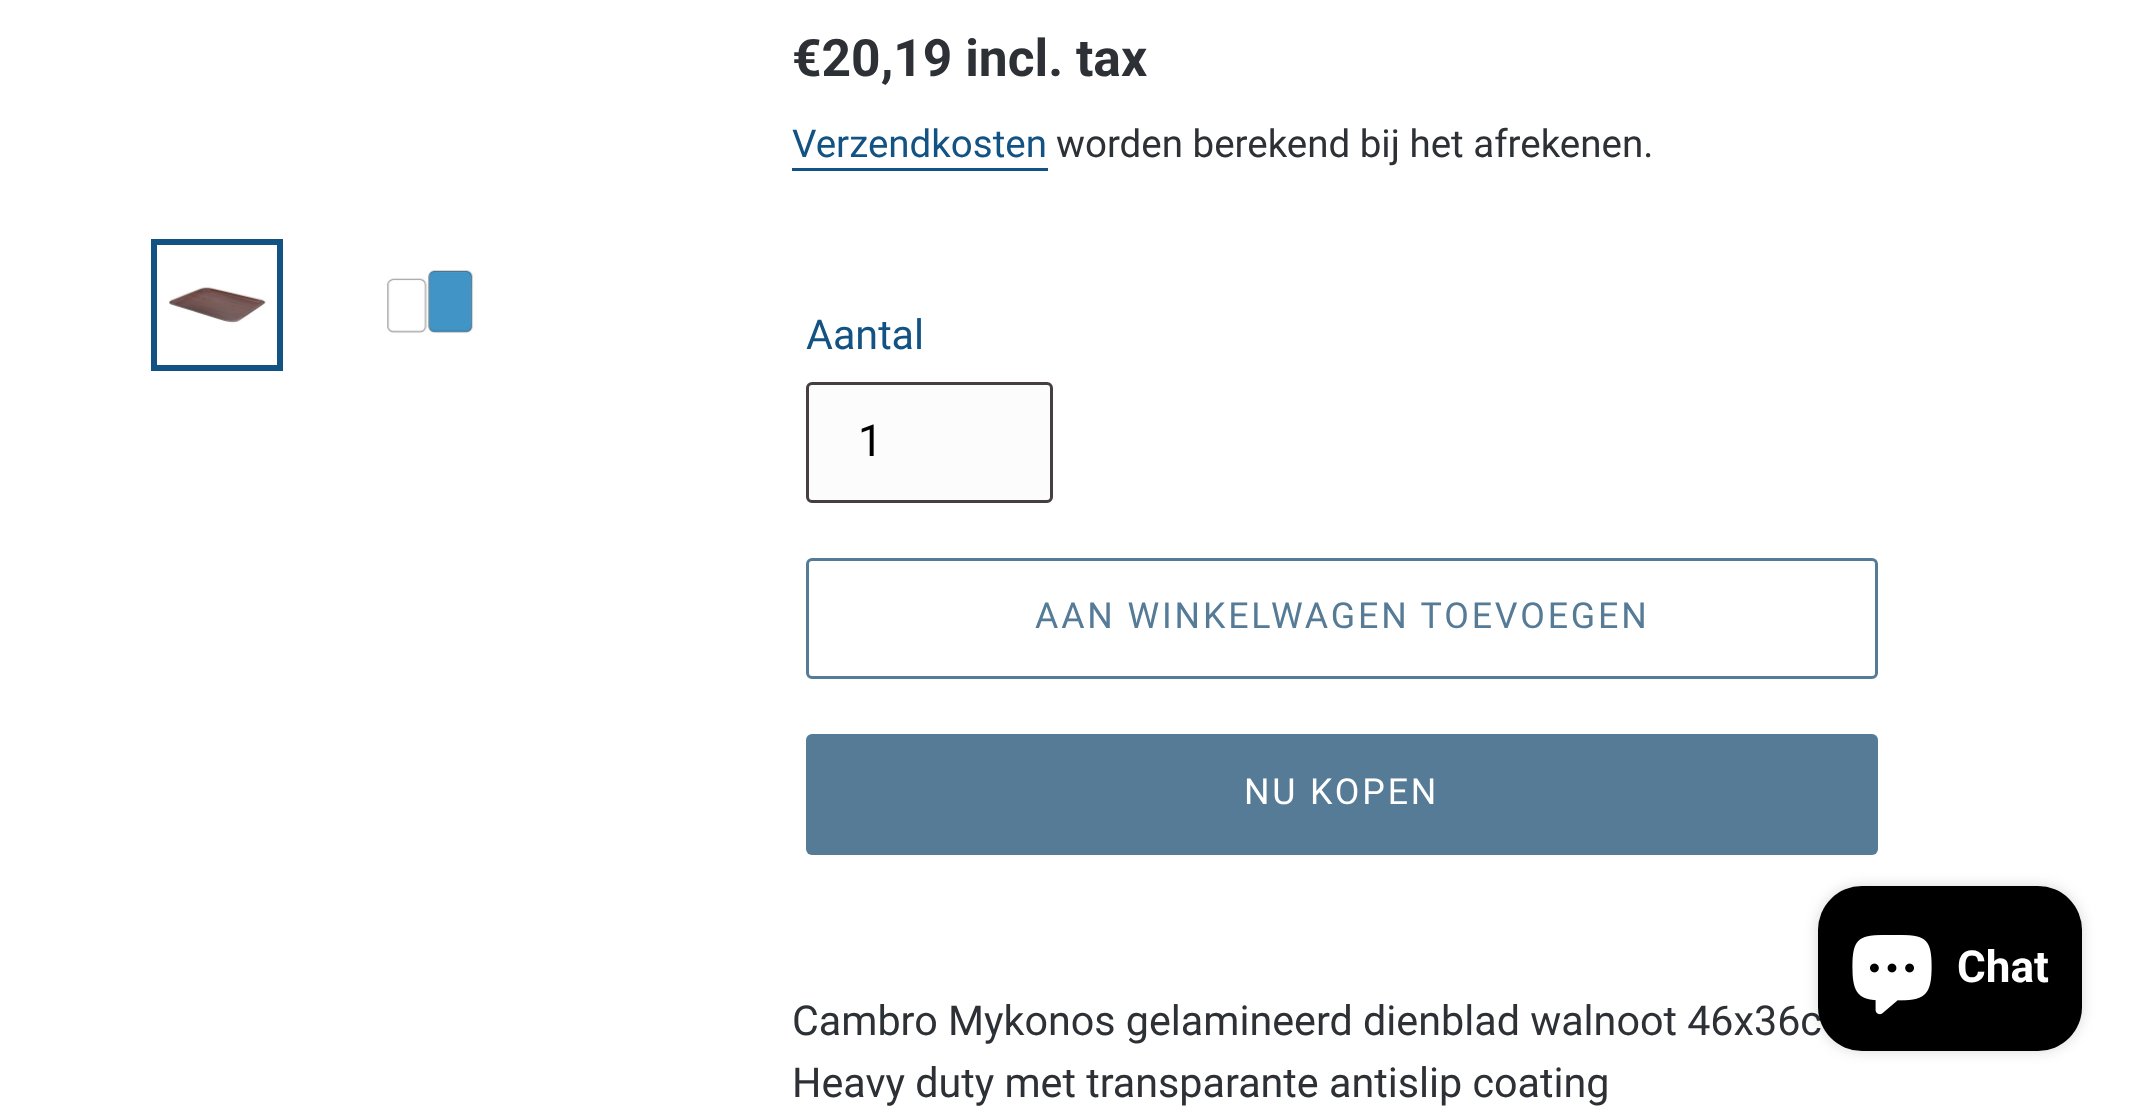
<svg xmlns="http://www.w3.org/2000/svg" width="2140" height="1108">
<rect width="100%" height="100%" fill="#fff"/>
<rect x="154" y="242" width="126" height="126" fill="none" stroke="#135384" stroke-width="6"/>
<image x="169" y="286" width="97" height="37" href="media/1.png"/>
<image x="387" y="270" width="87" height="64" href="media/2.png"/>
<text x="792" y="76" style="font-family:Roboto;font-size:51.5px;font-weight:bold;fill:#2d3136">€20,19 incl. tax</text>
<text x="792" y="157" style="font-family:Roboto;font-size:38.5px;fill:#135384">Verzendkosten</text>
<rect x="792" y="168" width="256" height="3" fill="#135384"/>
<text x="1056" y="157" style="font-family:Roboto;font-size:38.5px;fill:#2d3136">worden berekend bij het afrekenen.</text>
<text x="806" y="349" style="font-family:Roboto;font-size:41.25px;fill:#135384">Aantal</text>
<rect x="807.5" y="383.5" width="244" height="118" rx="4.5" fill="#fcfcfc" stroke="#453f3f" stroke-width="3"/>
<text x="858" y="456" style="font-family:Roboto;font-size:44px;fill:#000">1</text>
<rect x="807.5" y="559.5" width="1069" height="118" rx="4.5" fill="none" stroke="#557b97" stroke-width="3"/>
<text x="1035" y="628" style="font-family:Roboto;font-size:35.75px;letter-spacing:2.85px;fill:#557b97">AAN WINKELWAGEN TOEVOEGEN</text>
<rect x="806" y="734" width="1072" height="121" rx="6" fill="#557b97"/>
<text x="1244" y="804" style="font-family:Roboto;font-size:35.75px;letter-spacing:2.85px;fill:#fff">NU KOPEN</text>
<text x="792" y="1035" style="font-family:Roboto;font-size:41.25px;fill:#2d3136">Cambro Mykonos gelamineerd dienblad walnoot 46x36c</text>
<text x="792" y="1097" style="font-family:Roboto;font-size:41.25px;fill:#2d3136">Heavy duty met transparante antislip coating</text>
<rect x="1818" y="886" width="264" height="165" rx="44" fill="#00000026" filter="blur(7px)"/>
<rect x="1818" y="886" width="264" height="165" rx="44" fill="#000"/>
<image x="1852" y="935" width="80" height="80" href="media/3.png"/>
<text x="1957" y="982" style="font-family:Roboto;font-size:44px;font-weight:bold;fill:#fff">Chat</text>
</svg>
